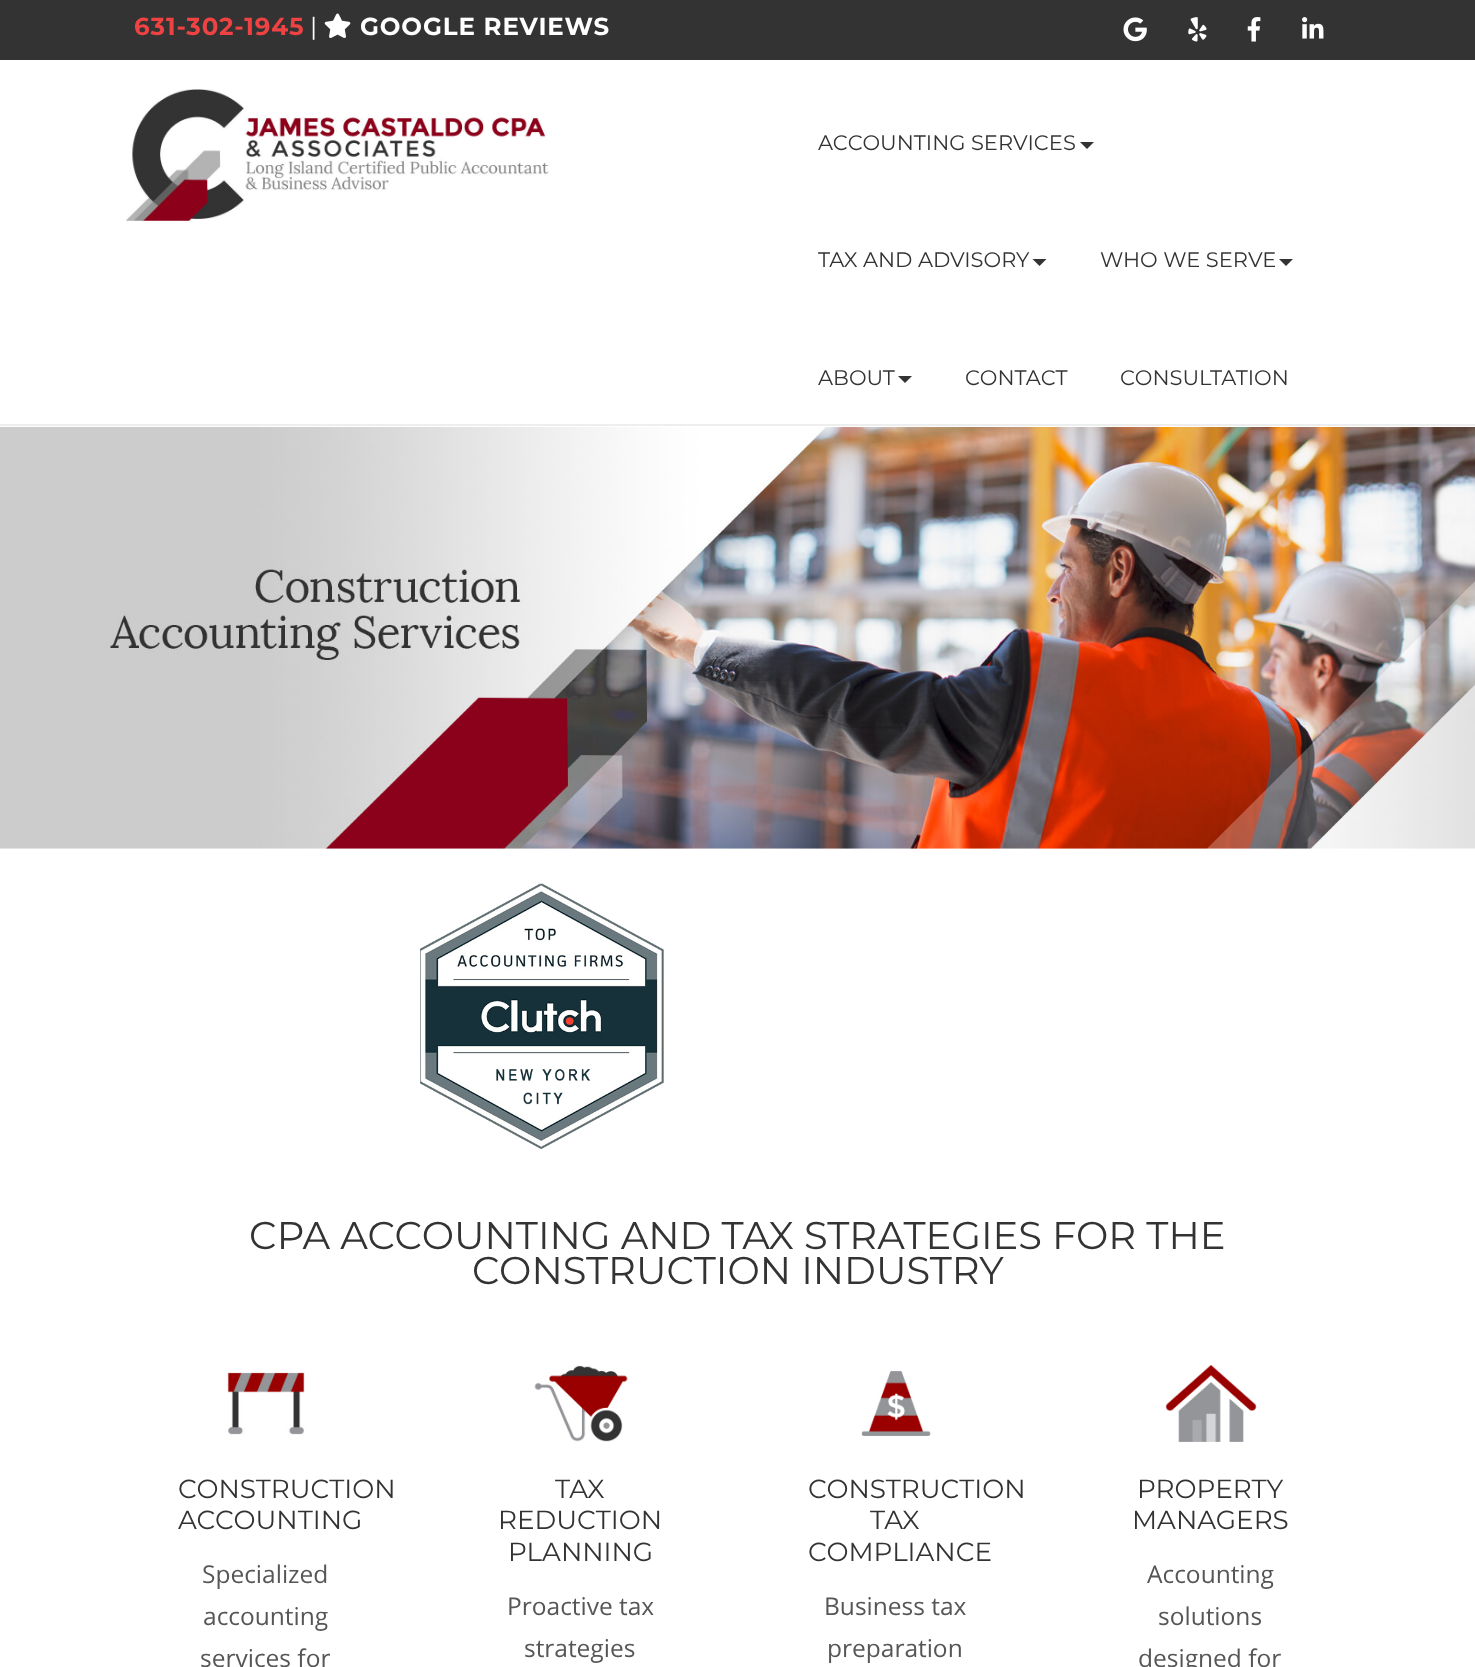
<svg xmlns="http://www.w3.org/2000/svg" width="1475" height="1667">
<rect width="100%" height="100%" fill="#fff"/>
<rect width="1475" height="60" fill="#333"/>
<text x="134" y="35" style="font-family:Montserrat;font-size:24.5px;font-weight:bold;letter-spacing:0.9px;fill:#ef4243">631-302-1945</text>
<text x="310" y="35" style="font-family:Montserrat;font-size:24.5px;fill:#fff">|</text>
<image x="324" y="13" width="27" height="25" href="media/1.png"/>
<text x="360" y="35" style="font-family:Montserrat;font-size:24.5px;font-weight:bold;letter-spacing:0.9px;fill:#fff">GOOGLE REVIEWS</text>
<image x="1123" y="17" width="24" height="25" href="media/2.png"/>
<image x="1188" y="17" width="19" height="25" href="media/3.png"/>
<image x="1247" y="17" width="14" height="25" href="media/4.png"/>
<image x="1302" y="17" width="22" height="22" href="media/5.png"/>
<rect y="424" width="1475" height="2" fill="#eee"/>
<image x="125" y="89" width="424" height="134" href="media/6.png"/>
<text x="818" y="150" style="font-family:Montserrat;font-size:21px;fill:#333">ACCOUNTING SERVICES</text>
<path d="M1080 142h14l-7 7z" fill="#333"/>
<text x="818" y="267" style="font-family:Montserrat;font-size:21px;fill:#333">TAX AND ADVISORY</text>
<path d="M1032.5 259h14l-7 7z" fill="#333"/>
<text x="1100" y="267" style="font-family:Montserrat;font-size:21px;fill:#333">WHO WE SERVE</text>
<path d="M1279 259h14l-7 7z" fill="#333"/>
<text x="818" y="385" style="font-family:Montserrat;font-size:21px;fill:#333">ABOUT</text>
<path d="M898 376h14l-7 7z" fill="#333"/>
<text x="965" y="385" style="font-family:Montserrat;font-size:21px;fill:#333">CONTACT</text>
<text x="1120" y="385" style="font-family:Montserrat;font-size:21px;fill:#333">CONSULTATION</text>
<image x="0" y="427" width="1475" height="422" href="media/7.png"/>
<image x="420" y="883" width="244" height="266" href="media/8.png"/>
<text x="249" y="1249" style="font-family:Montserrat;font-size:38.5px;fill:#333">CPA ACCOUNTING AND TAX STRATEGIES FOR THE</text>
<text x="472" y="1284" style="font-family:Montserrat;font-size:38.5px;fill:#333">CONSTRUCTION INDUSTRY</text>
<image x="227" y="1372" width="78" height="63" href="media/9.png"/>
<text x="178" y="1498" style="font-family:Montserrat;font-size:26.25px;fill:#333">CONSTRUCTION</text>
<text x="178" y="1529" style="font-family:Montserrat;font-size:26.25px;fill:#333">ACCOUNTING</text>
<text x="202" y="1583" style="font-family:Open Sans;font-size:24.5px;fill:#565656">Specialized</text>
<text x="203" y="1625" style="font-family:Open Sans;font-size:24.5px;fill:#565656">accounting</text>
<text x="200" y="1667" style="font-family:Open Sans;font-size:24.5px;fill:#565656">services for</text>
<image x="534" y="1365" width="94" height="77" href="media/10.png"/>
<text x="555" y="1498" style="font-family:Montserrat;font-size:26.25px;fill:#333">TAX</text>
<text x="498" y="1529" style="font-family:Montserrat;font-size:26.25px;fill:#333">REDUCTION</text>
<text x="508" y="1561" style="font-family:Montserrat;font-size:26.25px;fill:#333">PLANNING</text>
<text x="507" y="1615" style="font-family:Open Sans;font-size:24.5px;fill:#565656">Proactive tax</text>
<text x="524" y="1657" style="font-family:Open Sans;font-size:24.5px;fill:#565656">strategies</text>
<image x="861" y="1371" width="70" height="65" href="media/11.png"/>
<text x="808" y="1498" style="font-family:Montserrat;font-size:26.25px;fill:#333">CONSTRUCTION</text>
<text x="870" y="1529" style="font-family:Montserrat;font-size:26.25px;fill:#333">TAX</text>
<text x="808" y="1561" style="font-family:Montserrat;font-size:26.25px;fill:#333">COMPLIANCE</text>
<text x="824" y="1615" style="font-family:Open Sans;font-size:24.5px;fill:#565656">Business tax</text>
<text x="827" y="1657" style="font-family:Open Sans;font-size:24.5px;fill:#565656">preparation</text>
<image x="1165" y="1365" width="92" height="77" href="media/12.png"/>
<text x="1137" y="1498" style="font-family:Montserrat;font-size:26.25px;fill:#333">PROPERTY</text>
<text x="1132" y="1529" style="font-family:Montserrat;font-size:26.25px;fill:#333">MANAGERS</text>
<text x="1147" y="1583" style="font-family:Open Sans;font-size:24.5px;fill:#565656">Accounting</text>
<text x="1158" y="1625" style="font-family:Open Sans;font-size:24.5px;fill:#565656">solutions</text>
<text x="1138" y="1667" style="font-family:Open Sans;font-size:24.5px;fill:#565656">designed for</text>
</svg>
